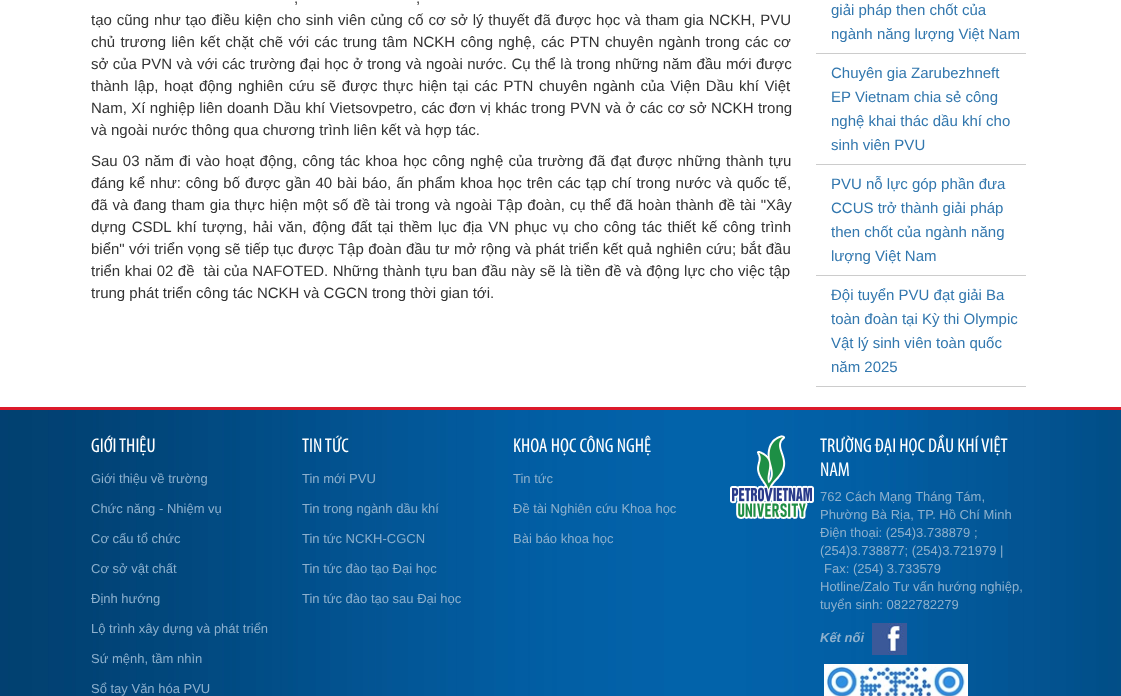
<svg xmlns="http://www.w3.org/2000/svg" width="1121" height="696">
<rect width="100%" height="100%" fill="#fff"/>
<text x="294" y="3" word-spacing="1" style="font-family:Liberation Sans;font-size:15px;fill:#333">,</text>
<text x="416" y="3" word-spacing="1" style="font-family:Liberation Sans;font-size:15px;fill:#333">,</text>
<text x="91" y="25" word-spacing="0.65" style="font-family:Liberation Sans;font-size:15px;fill:#333">tạo cũng như tạo điều kiện cho sinh viên củng cố cơ sở lý thuyết đã được học và tham gia NCKH, PVU</text>
<text x="91" y="47" word-spacing="1.1" style="font-family:Liberation Sans;font-size:15px;fill:#333">chủ trương liên kết chặt chẽ với các trung tâm NCKH công nghệ, các PTN chuyên ngành trong các cơ</text>
<text x="91" y="69" word-spacing="0.25" style="font-family:Liberation Sans;font-size:15px;fill:#333">sở của PVN và với các trường đại học ở trong và ngoài nước. Cụ thể là trong những năm đầu mới được</text>
<text x="91" y="91" word-spacing="1.5" style="font-family:Liberation Sans;font-size:15px;fill:#333">thành lập, hoạt động nghiên cứu sẽ được thực hiện tại các PTN chuyên ngành của Viện Dầu khí Việt</text>
<text x="91" y="113" word-spacing="0.25" style="font-family:Liberation Sans;font-size:15px;fill:#333">Nam, Xí nghiệp liên doanh Dầu khí Vietsovpetro, các đơn vị khác trong PVN và ở các cơ sở NCKH trong</text>
<text x="91" y="135" style="font-family:Liberation Sans;font-size:15px;fill:#333">và ngoài nước thông qua chương trình liên kết và hợp tác.</text>
<text x="91" y="166" word-spacing="1" style="font-family:Liberation Sans;font-size:15px;fill:#333">Sau 03 năm đi vào hoạt động, công tác khoa học công nghệ của trường đã đạt được những thành tựu</text>
<text x="91" y="188" word-spacing="0.75" style="font-family:Liberation Sans;font-size:15px;fill:#333">đáng kể như: công bố được gần 40 bài báo, ấn phẩm khoa học trên các tạp chí trong nước và quốc tế,</text>
<text x="91" y="210" word-spacing="0.7" style="font-family:Liberation Sans;font-size:15px;fill:#333">đã và đang tham gia thực hiện một số đề tài trong và ngoài Tập đoàn, cụ thể đã hoàn thành đề tài "Xây</text>
<text x="91" y="232" word-spacing="1.4" style="font-family:Liberation Sans;font-size:15px;fill:#333">dựng CSDL khí tượng, hải văn, động đất tại thềm lục địa VN phục vụ cho công tác thiết kế công trình</text>
<text x="91" y="254" word-spacing="0.25" style="font-family:Liberation Sans;font-size:15px;fill:#333">biển" với triển vọng sẽ tiếp tục được Tập đoàn đầu tư mở rộng và phát triển kết quả nghiên cứu; bắt đầu</text>
<text x="91" y="276" word-spacing="0.3" style="font-family:Liberation Sans;font-size:15px;fill:#333" xml:space="preserve">triển khai 02 đề  tài của NAFOTED. Những thành tựu ban đầu này sẽ là tiền đề và động lực cho việc tập</text>
<text x="91" y="298" style="font-family:Liberation Sans;font-size:15px;fill:#333">trung phát triển công tác NCKH và CGCN trong thời gian tới.</text>
<rect x="816" y="53" width="210" height="1" fill="#ccc"/>
<text x="831" y="15" style="font-family:Liberation Sans;font-size:15px;fill:#3277ae">giải pháp then chốt của</text>
<text x="831" y="39" style="font-family:Liberation Sans;font-size:15px;fill:#3277ae">ngành năng lượng Việt Nam</text>
<rect x="816" y="164" width="210" height="1" fill="#ccc"/>
<text x="831" y="78" style="font-family:Liberation Sans;font-size:15px;fill:#3277ae">Chuyên gia Zarubezhneft</text>
<text x="831" y="102" style="font-family:Liberation Sans;font-size:15px;fill:#3277ae">EP Vietnam chia sẻ công</text>
<text x="831" y="126" style="font-family:Liberation Sans;font-size:15px;fill:#3277ae">nghệ khai thác dầu khí cho</text>
<text x="831" y="150" style="font-family:Liberation Sans;font-size:15px;fill:#3277ae">sinh viên PVU</text>
<rect x="816" y="275" width="210" height="1" fill="#ccc"/>
<text x="831" y="189" style="font-family:Liberation Sans;font-size:15px;fill:#3277ae">PVU nỗ lực góp phần đưa</text>
<text x="831" y="213" style="font-family:Liberation Sans;font-size:15px;fill:#3277ae">CCUS trở thành giải pháp</text>
<text x="831" y="237" style="font-family:Liberation Sans;font-size:15px;fill:#3277ae">then chốt của ngành năng</text>
<text x="831" y="261" style="font-family:Liberation Sans;font-size:15px;fill:#3277ae">lượng Việt Nam</text>
<rect x="816" y="386" width="210" height="1" fill="#ccc"/>
<text x="831" y="300" style="font-family:Liberation Sans;font-size:15px;fill:#3277ae">Đội tuyển PVU đạt giải Ba</text>
<text x="831" y="324" style="font-family:Liberation Sans;font-size:15px;fill:#3277ae">toàn đoàn tại Kỳ thi Olympic</text>
<text x="831" y="348" style="font-family:Liberation Sans;font-size:15px;fill:#3277ae">Vật lý sinh viên toàn quốc</text>
<text x="831" y="372" style="font-family:Liberation Sans;font-size:15px;fill:#3277ae">năm 2025</text>
<rect y="407" width="1121" height="3" fill="#dc1a2b"/>
<image x="0" y="410" width="1121" height="286" href="media/1.png"/>
<text x="91" y="452" style="font-family:Myriad;font-size:20px;fill:#fff">GIỚI THIỆU</text>
<text x="91" y="483" style="font-family:Liberation Sans;font-size:13px;fill:#8db0cd">Giới thiệu về trường</text>
<text x="91" y="513" style="font-family:Liberation Sans;font-size:13px;fill:#8db0cd">Chức năng - Nhiệm vụ</text>
<text x="91" y="543" style="font-family:Liberation Sans;font-size:13px;fill:#8db0cd">Cơ cấu tổ chức</text>
<text x="91" y="573" style="font-family:Liberation Sans;font-size:13px;fill:#8db0cd">Cơ sở vật chất</text>
<text x="91" y="603" style="font-family:Liberation Sans;font-size:13px;fill:#8db0cd">Định hướng</text>
<text x="91" y="633" style="font-family:Liberation Sans;font-size:13px;fill:#8db0cd">Lộ trình xây dựng và phát triển</text>
<text x="91" y="663" style="font-family:Liberation Sans;font-size:13px;fill:#8db0cd">Sứ mệnh, tầm nhìn</text>
<text x="91" y="693" style="font-family:Liberation Sans;font-size:13px;fill:#8db0cd">Sổ tay Văn hóa PVU</text>
<text x="302" y="452" style="font-family:Myriad;font-size:20px;fill:#fff">TIN TỨC</text>
<text x="302" y="483" style="font-family:Liberation Sans;font-size:13px;fill:#8db0cd">Tin mới PVU</text>
<text x="302" y="513" style="font-family:Liberation Sans;font-size:13px;fill:#8db0cd">Tin trong ngành dầu khí</text>
<text x="302" y="543" style="font-family:Liberation Sans;font-size:13px;fill:#8db0cd">Tin tức NCKH-CGCN</text>
<text x="302" y="573" style="font-family:Liberation Sans;font-size:13px;fill:#8db0cd">Tin tức đào tạo Đại học</text>
<text x="302" y="603" style="font-family:Liberation Sans;font-size:13px;fill:#8db0cd">Tin tức đào tạo sau Đại học</text>
<text x="513" y="452" style="font-family:Myriad;font-size:20px;fill:#fff">KHOA HỌC CÔNG NGHỆ</text>
<text x="513" y="483" style="font-family:Liberation Sans;font-size:13px;fill:#8db0cd">Tin tức</text>
<text x="513" y="513" style="font-family:Liberation Sans;font-size:13px;fill:#8db0cd">Đề tài Nghiên cứu Khoa học</text>
<text x="513" y="543" style="font-family:Liberation Sans;font-size:13px;fill:#8db0cd">Bài báo khoa học</text>
<image x="730" y="435" width="84" height="84" href="media/2.png"/>
<text x="820" y="452" style="font-family:Myriad;font-size:20px;fill:#fff">TRƯỜNG ĐẠI HỌC DẦU KHÍ VIỆT</text>
<text x="820" y="476" style="font-family:Myriad;font-size:20px;fill:#fff">NAM</text>
<text x="820" y="501" style="font-family:Liberation Sans;font-size:13px;fill:#8db0cd">762 Cách Mạng Tháng Tám,</text>
<text x="820" y="519" style="font-family:Liberation Sans;font-size:13px;fill:#8db0cd">Phường Bà Rịa, TP. Hồ Chí Minh</text>
<text x="820" y="537" style="font-family:Liberation Sans;font-size:13px;fill:#8db0cd">Điện thoại: (254)3.738879 ;</text>
<text x="820" y="555" style="font-family:Liberation Sans;font-size:13px;fill:#8db0cd">(254)3.738877; (254)3.721979 |</text>
<text x="824" y="573" style="font-family:Liberation Sans;font-size:13px;fill:#8db0cd">Fax: (254) 3.733579</text>
<text x="820" y="591" style="font-family:Liberation Sans;font-size:13px;fill:#8db0cd">Hotline/Zalo Tư vấn hướng nghiệp,</text>
<text x="820" y="609" style="font-family:Liberation Sans;font-size:13px;fill:#8db0cd">tuyển sinh: 0822782279</text>
<text x="820" y="642" style="font-family:Liberation Sans;font-size:13px;font-weight:bold;font-style:italic;fill:#8db0cd">Kết nối</text>
<image x="872" y="623" width="35" height="32" href="media/3.png"/>
<image x="824" y="664" width="144" height="32" href="media/4.png"/>
</svg>
